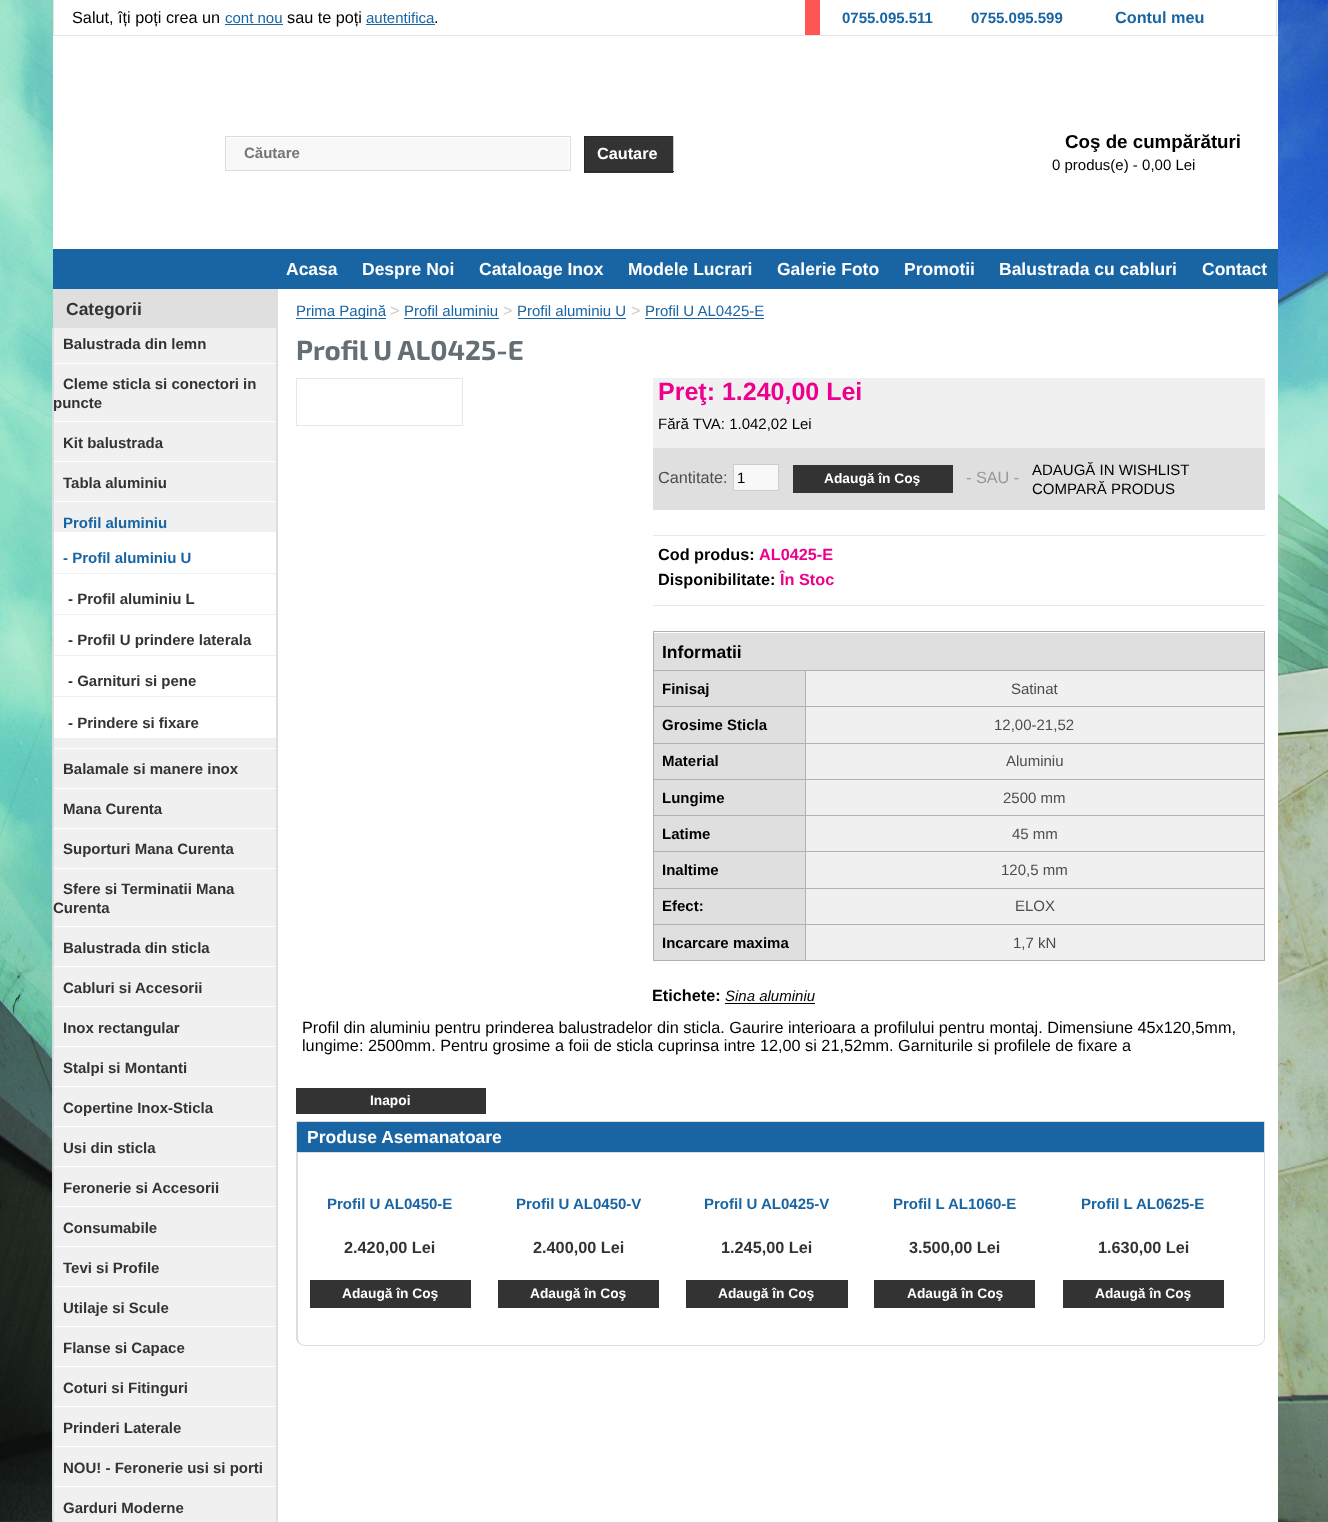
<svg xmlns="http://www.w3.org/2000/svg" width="1328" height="1522">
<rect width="100%" height="100%" fill="#fff"/>
<image x="0" y="0" width="1328" height="1522" href="media/1.png"/>
<rect x="53" width="1225" height="1522" fill="#fff"/>
<rect x="1276" width="1" height="36" fill="#e6e6e6"/>
<rect x="53" y="35" width="1225" height="1" fill="#e6e6e6"/>
<rect x="53" width="1" height="36" fill="#e6e6e6"/>
<text x="72" y="23" style="font-family:Liberation Sans;font-size:16.25px;fill:#000">Salut, îți poți crea un</text>
<text x="225" y="23" style="font-family:Liberation Sans;font-size:15px;fill:#1965a3">cont nou</text>
<rect x="225" y="24" width="58" height="1" fill="#1965a3"/>
<text x="287" y="23" style="font-family:Liberation Sans;font-size:16.25px;fill:#000">sau te poți</text>
<text x="366" y="23" style="font-family:Liberation Sans;font-size:15px;fill:#1965a3">autentifica</text>
<rect x="366" y="24" width="69" height="1" fill="#1965a3"/>
<text x="434" y="23" style="font-family:Liberation Sans;font-size:16.25px;fill:#000">.</text>
<rect x="805" width="15" height="35" fill="#f55"/>
<text x="842" y="23" style="font-family:Liberation Sans;font-size:15px;font-weight:bold;fill:#1965a3">0755.095.511</text>
<text x="971" y="23" style="font-family:Liberation Sans;font-size:15px;font-weight:bold;fill:#1965a3">0755.095.599</text>
<text x="1115" y="23" style="font-family:Liberation Sans;font-size:16.25px;font-weight:bold;fill:#1965a3">Contul meu</text>
<rect x="225.5" y="136.5" width="345" height="34" fill="none" stroke="#ddd"/>
<rect x="226" y="138" width="343" height="32" fill="#f8f8f8"/>
<text x="244" y="158" style="font-family:Liberation Sans;font-size:15px;font-weight:bold;fill:#757575">Căutare</text>
<rect x="585" y="137" width="88" height="36" fill="#333"/>
<rect x="584" y="136" width="90" height="1" fill="#282828"/>
<rect x="673" y="136" width="1" height="37" fill="#ccc"/>
<rect x="584" y="171" width="90" height="1" fill="#282828"/>
<rect x="584" y="136" width="1" height="37" fill="#282828"/>
<text x="597" y="159" style="font-family:Liberation Sans;font-size:16.25px;font-weight:bold;fill:#fff">Cautare</text>
<text x="1065" y="148" style="font-family:Liberation Sans;font-size:18.75px;font-weight:bold;fill:#000">Coş de cumpărături</text>
<text x="1052" y="170" style="font-family:Liberation Sans;font-size:15px;fill:#000">0 produs(e) - 0,00 Lei</text>
<rect x="53" y="249" width="1225" height="40" fill="#1965a3"/>
<text x="286" y="275" style="font-family:Liberation Sans;font-size:17.5px;font-weight:bold;fill:#fff">Acasa</text>
<text x="362" y="275" style="font-family:Liberation Sans;font-size:17.5px;font-weight:bold;fill:#fff">Despre Noi</text>
<text x="479" y="275" style="font-family:Liberation Sans;font-size:17.5px;font-weight:bold;fill:#fff">Cataloage Inox</text>
<text x="628" y="275" style="font-family:Liberation Sans;font-size:17.5px;font-weight:bold;fill:#fff">Modele Lucrari</text>
<text x="777" y="275" style="font-family:Liberation Sans;font-size:17.5px;font-weight:bold;fill:#fff">Galerie Foto</text>
<text x="904" y="275" style="font-family:Liberation Sans;font-size:17.5px;font-weight:bold;fill:#fff">Promotii</text>
<text x="999" y="275" style="font-family:Liberation Sans;font-size:17.5px;font-weight:bold;fill:#fff">Balustrada cu cabluri</text>
<text x="1202" y="275" style="font-family:Liberation Sans;font-size:17.5px;font-weight:bold;fill:#fff">Contact</text>
<rect x="53.5" y="289.5" width="224" height="38" fill="#dfdfdf" stroke="#dbdee1"/>
<text x="66" y="315" style="font-family:Liberation Sans;font-size:17.5px;font-weight:bold;fill:#333">Categorii</text>
<path d="M53 328h225v1191c0 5-4 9-9 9h-207c-5 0-9-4-9-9z" fill="#f0f0f0"/>
<path d="M52 328h226v1191c0 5-4 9-9 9h-208c-5 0-9-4-9-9zm2 0h222v1191c0 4-3 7-7 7h-208c-4 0-7-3-7-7z" fill="#dbdee1" fill-rule="evenodd"/>
<text x="63" y="349" style="font-family:Liberation Sans;font-size:15px;font-weight:bold;fill:#333">Balustrada din lemn</text>
<rect x="54" y="363" width="222" height="1" fill="#fff"/>
<text x="63" y="389" style="font-family:Liberation Sans;font-size:15px;font-weight:bold;fill:#333">Cleme sticla si conectori in</text>
<text x="53" y="408" style="font-family:Liberation Sans;font-size:15px;font-weight:bold;fill:#333">puncte</text>
<rect x="54" y="421" width="222" height="1" fill="#fff"/>
<text x="63" y="448" style="font-family:Liberation Sans;font-size:15px;font-weight:bold;fill:#333">Kit balustrada</text>
<rect x="54" y="461" width="222" height="1" fill="#fff"/>
<text x="63" y="488" style="font-family:Liberation Sans;font-size:15px;font-weight:bold;fill:#333">Tabla aluminiu</text>
<rect x="54" y="501" width="222" height="1" fill="#fff"/>
<text x="63" y="528" style="font-family:Liberation Sans;font-size:15px;font-weight:bold;fill:#1965a3">Profil aluminiu</text>
<rect x="54" y="532" width="222" height="41" fill="#fff"/>
<text x="63" y="563" style="font-family:Liberation Sans;font-size:15px;font-weight:bold;fill:#1965a3">- Profil aluminiu U</text>
<rect x="54" y="574" width="222" height="40" fill="#fff"/>
<text x="68" y="604" style="font-family:Liberation Sans;font-size:15px;font-weight:bold;fill:#333">- Profil aluminiu L</text>
<rect x="54" y="615" width="222" height="40" fill="#fff"/>
<text x="68" y="645" style="font-family:Liberation Sans;font-size:15px;font-weight:bold;fill:#333">- Profil U prindere laterala</text>
<rect x="54" y="656" width="222" height="40" fill="#fff"/>
<text x="68" y="686" style="font-family:Liberation Sans;font-size:15px;font-weight:bold;fill:#333">- Garnituri si pene</text>
<rect x="54" y="697" width="222" height="41" fill="#fff"/>
<text x="68" y="728" style="font-family:Liberation Sans;font-size:15px;font-weight:bold;fill:#333">- Prindere si fixare</text>
<rect x="54" y="748" width="222" height="1" fill="#fff"/>
<text x="63" y="774" style="font-family:Liberation Sans;font-size:15px;font-weight:bold;fill:#333">Balamale si manere inox</text>
<rect x="54" y="788" width="222" height="1" fill="#fff"/>
<text x="63" y="814" style="font-family:Liberation Sans;font-size:15px;font-weight:bold;fill:#333">Mana Curenta</text>
<rect x="54" y="828" width="222" height="1" fill="#fff"/>
<text x="63" y="854" style="font-family:Liberation Sans;font-size:15px;font-weight:bold;fill:#333">Suporturi Mana Curenta</text>
<rect x="54" y="868" width="222" height="1" fill="#fff"/>
<text x="63" y="894" style="font-family:Liberation Sans;font-size:15px;font-weight:bold;fill:#333">Sfere si Terminatii Mana</text>
<text x="53" y="913" style="font-family:Liberation Sans;font-size:15px;font-weight:bold;fill:#333">Curenta</text>
<rect x="54" y="926" width="222" height="1" fill="#fff"/>
<text x="63" y="953" style="font-family:Liberation Sans;font-size:15px;font-weight:bold;fill:#333">Balustrada din sticla</text>
<rect x="54" y="966" width="222" height="1" fill="#fff"/>
<text x="63" y="993" style="font-family:Liberation Sans;font-size:15px;font-weight:bold;fill:#333">Cabluri si Accesorii</text>
<rect x="54" y="1006" width="222" height="1" fill="#fff"/>
<text x="63" y="1033" style="font-family:Liberation Sans;font-size:15px;font-weight:bold;fill:#333">Inox rectangular</text>
<rect x="54" y="1046" width="222" height="1" fill="#fff"/>
<text x="63" y="1073" style="font-family:Liberation Sans;font-size:15px;font-weight:bold;fill:#333">Stalpi si Montanti</text>
<rect x="54" y="1086" width="222" height="1" fill="#fff"/>
<text x="63" y="1113" style="font-family:Liberation Sans;font-size:15px;font-weight:bold;fill:#333">Copertine Inox-Sticla</text>
<rect x="54" y="1126" width="222" height="1" fill="#fff"/>
<text x="63" y="1153" style="font-family:Liberation Sans;font-size:15px;font-weight:bold;fill:#333">Usi din sticla</text>
<rect x="54" y="1166" width="222" height="1" fill="#fff"/>
<text x="63" y="1193" style="font-family:Liberation Sans;font-size:15px;font-weight:bold;fill:#333">Feronerie si Accesorii</text>
<rect x="54" y="1206" width="222" height="1" fill="#fff"/>
<text x="63" y="1233" style="font-family:Liberation Sans;font-size:15px;font-weight:bold;fill:#333">Consumabile</text>
<rect x="54" y="1246" width="222" height="1" fill="#fff"/>
<text x="63" y="1273" style="font-family:Liberation Sans;font-size:15px;font-weight:bold;fill:#333">Tevi si Profile</text>
<rect x="54" y="1286" width="222" height="1" fill="#fff"/>
<text x="63" y="1313" style="font-family:Liberation Sans;font-size:15px;font-weight:bold;fill:#333">Utilaje si Scule</text>
<rect x="54" y="1326" width="222" height="1" fill="#fff"/>
<text x="63" y="1353" style="font-family:Liberation Sans;font-size:15px;font-weight:bold;fill:#333">Flanse si Capace</text>
<rect x="54" y="1366" width="222" height="1" fill="#fff"/>
<text x="63" y="1393" style="font-family:Liberation Sans;font-size:15px;font-weight:bold;fill:#333">Coturi si Fitinguri</text>
<rect x="54" y="1406" width="222" height="1" fill="#fff"/>
<text x="63" y="1433" style="font-family:Liberation Sans;font-size:15px;font-weight:bold;fill:#333">Prinderi Laterale</text>
<rect x="54" y="1446" width="222" height="1" fill="#fff"/>
<text x="63" y="1473" style="font-family:Liberation Sans;font-size:15px;font-weight:bold;fill:#333">NOU! - Feronerie usi si porti</text>
<rect x="54" y="1486" width="222" height="1" fill="#fff"/>
<text x="63" y="1513" style="font-family:Liberation Sans;font-size:15px;font-weight:bold;fill:#333">Garduri Moderne</text>
<rect x="296" y="318" width="90" height="1" fill="#1965a3"/>
<text x="296" y="316" style="font-family:Liberation Sans;font-size:15px;fill:#1965a3">Prima Pagină</text>
<text x="390" y="316" style="font-family:Liberation Sans;font-size:16.25px;fill:#ccc">&gt;</text>
<text x="404" y="316" style="font-family:Liberation Sans;font-size:15px;fill:#1965a3">Profil aluminiu</text>
<rect x="404" y="318" width="95" height="1" fill="#1965a3"/>
<text x="503" y="316" style="font-family:Liberation Sans;font-size:16.25px;fill:#ccc">&gt;</text>
<text x="517" y="316" style="font-family:Liberation Sans;font-size:15px;fill:#1965a3">Profil aluminiu U</text>
<rect x="518" y="318" width="108" height="1" fill="#1965a3"/>
<text x="631" y="316" style="font-family:Liberation Sans;font-size:16.25px;fill:#ccc">&gt;</text>
<text x="645" y="316" style="font-family:Liberation Sans;font-size:15px;fill:#1965a3">Profil U AL0425-E</text>
<rect x="645" y="318" width="119" height="1" fill="#1965a3"/>
<text x="296" y="360" style="font-family:'Exo 2';font-size:27.5px;font-weight:bold;fill:#636e75">Profil U AL0425-E</text>
<rect x="296.5" y="378.5" width="166" height="47" fill="none" stroke="#e7e7e7"/>
<rect x="653" y="378" width="612" height="70" fill="#f0f0f0"/>
<text x="658" y="400" style="font-family:Liberation Sans;font-size:25px;font-weight:bold;fill:#ec008d">Preţ: 1.240,00 Lei</text>
<text x="658" y="429" style="font-family:Liberation Sans;font-size:15px;fill:#000">Fără TVA: 1.042,02 Lei</text>
<rect x="653" y="448" width="612" height="62" fill="#dfdfdf"/>
<text x="658" y="483" style="font-family:Liberation Sans;font-size:16.25px;fill:#4d4d4d">Cantitate:</text>
<rect x="733.5" y="464.5" width="45" height="26" fill="#f8f8f8" stroke="#ccc"/>
<text x="737" y="483" style="font-family:Liberation Sans;font-size:15px;fill:#000">1</text>
<rect x="793" y="465" width="160" height="28" fill="#333"/>
<text x="824" y="483" style="font-family:Liberation Sans;font-size:13.75px;font-weight:bold;fill:#fff">Adaugă în Coş</text>
<text x="966" y="483" style="font-family:Liberation Sans;font-size:16.25px;fill:#999">- SAU -</text>
<text x="1032" y="475" style="font-family:Liberation Sans;font-size:15px;fill:#000">ADAUGĂ IN WISHLIST</text>
<text x="1032" y="494" style="font-family:Liberation Sans;font-size:15px;fill:#000">COMPARĂ PRODUS</text>
<rect x="653" y="535" width="612" height="1" fill="#e7e7e7"/>
<rect x="653" y="605" width="612" height="1" fill="#e7e7e7"/>
<text x="658" y="560" style="font-family:Liberation Sans;font-size:16.25px;font-weight:bold;fill:#000">Cod produs:</text>
<text x="759" y="560" style="font-family:Liberation Sans;font-size:16.25px;font-weight:bold;fill:#ec008d">AL0425-E</text>
<text x="658" y="585" style="font-family:Liberation Sans;font-size:16.25px;font-weight:bold;fill:#000">Disponibilitate:</text>
<text x="780" y="585" style="font-family:Liberation Sans;font-size:16.25px;font-weight:bold;fill:#ec008d">În Stoc</text>
<rect x="653" y="631" width="612" height="1" fill="#b1b1b1"/>
<rect x="653" y="631" width="1" height="330" fill="#b1b1b1"/>
<rect x="654" y="633" width="610" height="37" fill="#dfdfdf"/>
<rect x="806" y="671" width="458" height="72" fill="#f0f0f0"/>
<rect x="806" y="816" width="458" height="72" fill="#f0f0f0"/>
<rect x="1264" y="631" width="1" height="330" fill="#b1b1b1"/>
<rect x="805" y="960" width="460" height="1" fill="#b1b1b1"/>
<rect x="805" y="924" width="1" height="37" fill="#b1b1b1"/>
<rect x="805" y="924" width="460" height="1" fill="#b1b1b1"/>
<rect x="805" y="888" width="1" height="37" fill="#b1b1b1"/>
<rect x="805" y="888" width="460" height="1" fill="#b1b1b1"/>
<rect x="805" y="851" width="1" height="38" fill="#b1b1b1"/>
<rect x="805" y="851" width="460" height="1" fill="#b1b1b1"/>
<rect x="805" y="815" width="1" height="38" fill="#b1b1b1"/>
<rect x="805" y="815" width="460" height="1" fill="#b1b1b1"/>
<rect x="805" y="779" width="1" height="37" fill="#b1b1b1"/>
<rect x="805" y="779" width="460" height="1" fill="#b1b1b1"/>
<rect x="805" y="743" width="1" height="37" fill="#b1b1b1"/>
<rect x="805" y="743" width="460" height="1" fill="#b1b1b1"/>
<rect x="805" y="706" width="1" height="38" fill="#b1b1b1"/>
<rect x="805" y="706" width="460" height="1" fill="#b1b1b1"/>
<rect x="805" y="670" width="1" height="38" fill="#b1b1b1"/>
<rect x="653" y="670" width="612" height="1" fill="#b1b1b1"/>
<text x="662" y="658" style="font-family:Liberation Sans;font-size:17.5px;font-weight:bold;fill:#000">Informatii</text>
<rect x="654" y="671" width="151" height="72" fill="#dfdfdf"/>
<rect x="653" y="706" width="153" height="1" fill="#b1b1b1"/>
<text x="662" y="694" style="font-family:Liberation Sans;font-size:15px;font-weight:bold;fill:#000">Finisaj</text>
<text x="1011" y="694" style="font-family:Liberation Sans;font-size:15px;fill:#4d4d4d">Satinat</text>
<rect x="653" y="743" width="153" height="1" fill="#b1b1b1"/>
<text x="662" y="730" style="font-family:Liberation Sans;font-size:15px;font-weight:bold;fill:#000">Grosime Sticla</text>
<text x="994" y="730" style="font-family:Liberation Sans;font-size:15px;fill:#4d4d4d">12,00-21,52</text>
<rect x="654" y="744" width="151" height="35" fill="#dfdfdf"/>
<rect x="653" y="779" width="153" height="1" fill="#b1b1b1"/>
<text x="662" y="766" style="font-family:Liberation Sans;font-size:15px;font-weight:bold;fill:#000">Material</text>
<rect x="806" y="744" width="458" height="35" fill="#f0f0f0"/>
<text x="1006" y="766" style="font-family:Liberation Sans;font-size:15px;fill:#4d4d4d">Aluminiu</text>
<rect x="654" y="780" width="151" height="35" fill="#dfdfdf"/>
<rect x="653" y="815" width="153" height="1" fill="#b1b1b1"/>
<text x="662" y="803" style="font-family:Liberation Sans;font-size:15px;font-weight:bold;fill:#000">Lungime</text>
<rect x="806" y="780" width="458" height="35" fill="#f0f0f0"/>
<text x="1003" y="803" style="font-family:Liberation Sans;font-size:15px;fill:#4d4d4d">2500 mm</text>
<rect x="654" y="816" width="151" height="72" fill="#dfdfdf"/>
<rect x="653" y="851" width="153" height="1" fill="#b1b1b1"/>
<text x="662" y="839" style="font-family:Liberation Sans;font-size:15px;font-weight:bold;fill:#000">Latime</text>
<text x="1012" y="839" style="font-family:Liberation Sans;font-size:15px;fill:#4d4d4d">45 mm</text>
<rect x="653" y="888" width="153" height="1" fill="#b1b1b1"/>
<text x="662" y="875" style="font-family:Liberation Sans;font-size:15px;font-weight:bold;fill:#000">Inaltime</text>
<text x="1001" y="875" style="font-family:Liberation Sans;font-size:15px;fill:#4d4d4d">120,5 mm</text>
<rect x="654" y="889" width="151" height="35" fill="#dfdfdf"/>
<rect x="653" y="924" width="153" height="1" fill="#b1b1b1"/>
<text x="662" y="911" style="font-family:Liberation Sans;font-size:15px;font-weight:bold;fill:#000">Efect:</text>
<rect x="806" y="889" width="458" height="35" fill="#f0f0f0"/>
<text x="1015" y="911" style="font-family:Liberation Sans;font-size:15px;fill:#4d4d4d">ELOX</text>
<rect x="654" y="925" width="151" height="35" fill="#dfdfdf"/>
<rect x="653" y="960" width="153" height="1" fill="#b1b1b1"/>
<text x="662" y="948" style="font-family:Liberation Sans;font-size:15px;font-weight:bold;fill:#000">Incarcare maxima</text>
<rect x="806" y="925" width="458" height="35" fill="#f0f0f0"/>
<text x="1013" y="948" style="font-family:Liberation Sans;font-size:15px;fill:#4d4d4d">1,7 kN</text>
<text x="652" y="1001" style="font-family:Liberation Sans;font-size:16.25px;font-weight:bold;fill:#000">Etichete:</text>
<text x="725" y="1001" style="font-family:Liberation Sans;font-size:15px;font-style:italic;fill:#000">Sina aluminiu</text>
<rect x="725" y="1003" width="90" height="1" fill="#000"/>
<text x="302" y="1033" style="font-family:Liberation Sans;font-size:16.25px;fill:#000">Profil din aluminiu pentru prinderea balustradelor din sticla. Gaurire interioara a profilului pentru montaj. Dimensiune 45x120,5mm,</text>
<text x="302" y="1051" style="font-family:Liberation Sans;font-size:16.25px;fill:#000">lungime: 2500mm. Pentru grosime a foii de sticla cuprinsa intre 12,00 si 21,52mm. Garniturile si profilele de fixare a</text>
<rect x="296" y="1088" width="190" height="26" fill="#333"/>
<text x="370" y="1105" style="font-family:Liberation Sans;font-size:13.75px;font-weight:bold;fill:#fff">Inapoi</text>
<rect x="296.5" y="1121.5" width="968" height="31" fill="#1965a3" stroke="#dbdee1"/>
<text x="307" y="1143" style="font-family:Liberation Sans;font-size:17.5px;font-weight:bold;fill:#fff">Produse Asemanatoare</text>
<path d="M296 1152h969v186c0 4-4 8-9 8h-951c-5 0-9-4-9-8zm2 0h966v186c0 4-4 7-8 7h-951c-4 0-7-3-7-7z" fill="#dbdee1" fill-rule="evenodd"/>
<text x="327" y="1209" style="font-family:Liberation Sans;font-size:15px;font-weight:bold;fill:#1965a3">Profil U AL0450-E</text>
<text x="344" y="1253" style="font-family:Liberation Sans;font-size:16.25px;font-weight:bold;fill:#333">2.420,00 Lei</text>
<rect x="310" y="1280" width="161" height="28" fill="#333"/>
<text x="342" y="1298" style="font-family:Liberation Sans;font-size:13.75px;font-weight:bold;fill:#fff">Adaugă în Coş</text>
<text x="516" y="1209" style="font-family:Liberation Sans;font-size:15px;font-weight:bold;fill:#1965a3">Profil U AL0450-V</text>
<text x="533" y="1253" style="font-family:Liberation Sans;font-size:16.25px;font-weight:bold;fill:#333">2.400,00 Lei</text>
<rect x="498" y="1280" width="161" height="28" fill="#333"/>
<text x="530" y="1298" style="font-family:Liberation Sans;font-size:13.75px;font-weight:bold;fill:#fff">Adaugă în Coş</text>
<text x="704" y="1209" style="font-family:Liberation Sans;font-size:15px;font-weight:bold;fill:#1965a3">Profil U AL0425-V</text>
<text x="721" y="1253" style="font-family:Liberation Sans;font-size:16.25px;font-weight:bold;fill:#333">1.245,00 Lei</text>
<rect x="686" y="1280" width="162" height="28" fill="#333"/>
<text x="718" y="1298" style="font-family:Liberation Sans;font-size:13.75px;font-weight:bold;fill:#fff">Adaugă în Coş</text>
<text x="893" y="1209" style="font-family:Liberation Sans;font-size:15px;font-weight:bold;fill:#1965a3">Profil L</text>
<text x="948" y="1209" style="font-family:Liberation Sans;font-size:15px;font-weight:bold;fill:#1965a3">AL1060-E</text>
<text x="909" y="1253" style="font-family:Liberation Sans;font-size:16.25px;font-weight:bold;fill:#333">3.500,00 Lei</text>
<rect x="874" y="1280" width="161" height="28" fill="#333"/>
<text x="907" y="1298" style="font-family:Liberation Sans;font-size:13.75px;font-weight:bold;fill:#fff">Adaugă în Coş</text>
<text x="1081" y="1209" style="font-family:Liberation Sans;font-size:15px;font-weight:bold;fill:#1965a3">Profil L</text>
<text x="1136" y="1209" style="font-family:Liberation Sans;font-size:15px;font-weight:bold;fill:#1965a3">AL0625-E</text>
<text x="1098" y="1253" style="font-family:Liberation Sans;font-size:16.25px;font-weight:bold;fill:#333">1.630,00 Lei</text>
<rect x="1063" y="1280" width="161" height="28" fill="#333"/>
<text x="1095" y="1298" style="font-family:Liberation Sans;font-size:13.75px;font-weight:bold;fill:#fff">Adaugă în Coş</text>
</svg>
